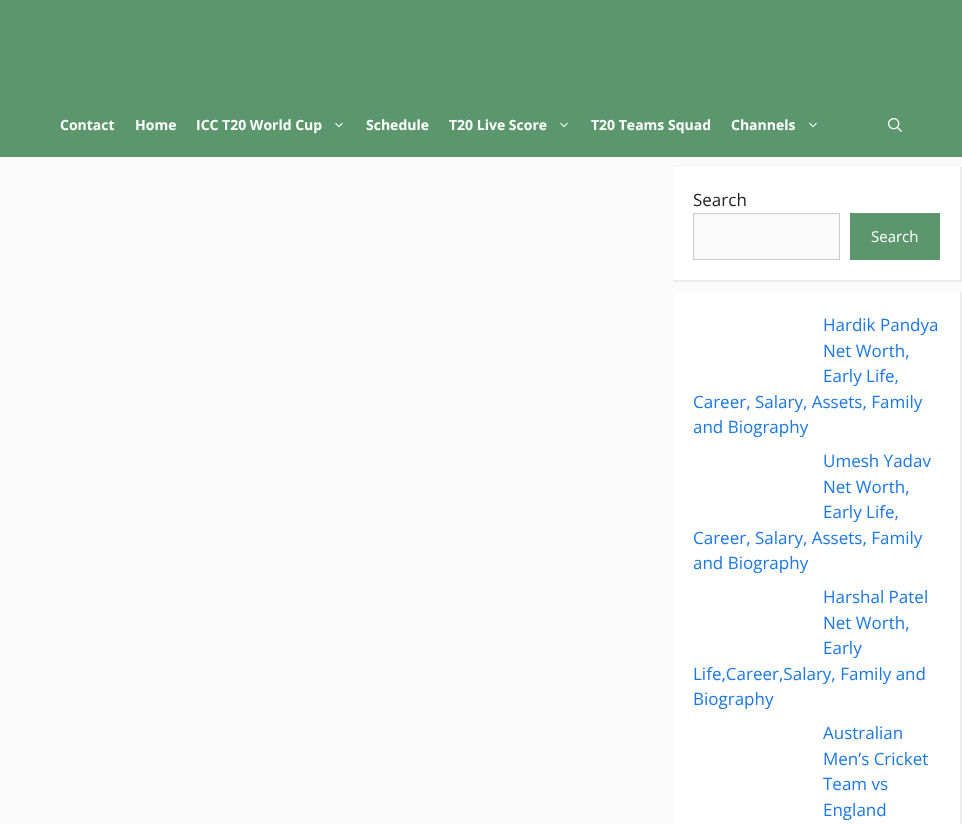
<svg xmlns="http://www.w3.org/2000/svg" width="962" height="824">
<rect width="100%" height="100%" fill="#fafafa"/>
<rect width="962" height="157" fill="#5c966d"/>
<text x="60" y="130" style="font-family:Open Sans;font-size:14px;font-weight:bold;fill:#fff">Contact</text>
<text x="135" y="130" style="font-family:Open Sans;font-size:14px;font-weight:bold;fill:#fff">Home</text>
<text x="196" y="130" style="font-family:Open Sans;font-size:14px;font-weight:bold;fill:#fff">ICC T20 World Cup</text>
<image x="335" y="122" width="8" height="6" href="media/1.png"/>
<text x="366" y="130" style="font-family:Open Sans;font-size:14px;font-weight:bold;fill:#fff">Schedule</text>
<text x="449" y="130" style="font-family:Open Sans;font-size:14px;font-weight:bold;fill:#fff">T20 Live Score</text>
<image x="560" y="122" width="8" height="6" href="media/1.png"/>
<text x="591" y="130" style="font-family:Open Sans;font-size:14px;font-weight:bold;fill:#fff">T20 Teams Squad</text>
<text x="731" y="130" style="font-family:Open Sans;font-size:14px;font-weight:bold;fill:#fff">Channels</text>
<image x="809" y="122" width="8" height="6" href="media/1.png"/>
<image x="888" y="118" width="14" height="14" href="media/2.png"/>
<rect x="673" y="167" width="289" height="115" fill="#fff"/>
<path d="M962 167v115l-2-2v-113z" fill="#ededed"/>
<path d="M962 282h-289v-2h287z" fill="#00000012"/>
<text x="693" y="206" style="font-family:Open Sans;font-size:17px;fill:#212121">Search</text>
<rect x="693.5" y="213.5" width="146" height="46" fill="#fafafa" stroke="#ccc"/>
<rect x="850" y="213" width="90" height="47" fill="#5c966d"/>
<text x="871" y="242" style="font-family:Open Sans;font-size:15px;fill:#fff">Search</text>
<rect x="673" y="292" width="287" height="532" fill="#fff"/>
<path d="M962 292v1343l-2-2v-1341z" fill="#ededed"/>
<text x="823" y="331" style="font-family:Open Sans;font-size:17px;fill:#1b78e2">Hardik Pandya</text>
<text x="823" y="357" style="font-family:Open Sans;font-size:17px;fill:#1b78e2">Net Worth,</text>
<text x="823" y="382" style="font-family:Open Sans;font-size:17px;fill:#1b78e2">Early Life,</text>
<text x="693" y="408" style="font-family:Open Sans;font-size:17px;fill:#1b78e2">Career, Salary, Assets, Family</text>
<text x="693" y="433" style="font-family:Open Sans;font-size:17px;fill:#1b78e2">and Biography</text>
<text x="823" y="467" style="font-family:Open Sans;font-size:17px;fill:#1b78e2">Umesh Yadav</text>
<text x="823" y="493" style="font-family:Open Sans;font-size:17px;fill:#1b78e2">Net Worth,</text>
<text x="823" y="518" style="font-family:Open Sans;font-size:17px;fill:#1b78e2">Early Life,</text>
<text x="693" y="544" style="font-family:Open Sans;font-size:17px;fill:#1b78e2">Career, Salary, Assets, Family</text>
<text x="693" y="569" style="font-family:Open Sans;font-size:17px;fill:#1b78e2">and Biography</text>
<text x="823" y="603" style="font-family:Open Sans;font-size:17px;fill:#1b78e2">Harshal Patel</text>
<text x="823" y="629" style="font-family:Open Sans;font-size:17px;fill:#1b78e2">Net Worth,</text>
<text x="823" y="654" style="font-family:Open Sans;font-size:17px;fill:#1b78e2">Early</text>
<text x="693" y="680" style="font-family:Open Sans;font-size:17px;fill:#1b78e2">Life,Career,Salary, Family and</text>
<text x="693" y="705" style="font-family:Open Sans;font-size:17px;fill:#1b78e2">Biography</text>
<text x="823" y="739" style="font-family:Open Sans;font-size:17px;fill:#1b78e2">Australian</text>
<text x="823" y="765" style="font-family:Open Sans;font-size:17px;fill:#1b78e2">Men’s Cricket</text>
<text x="823" y="790" style="font-family:Open Sans;font-size:17px;fill:#1b78e2">Team vs</text>
<text x="823" y="816" style="font-family:Open Sans;font-size:17px;fill:#1b78e2">England</text>
</svg>
